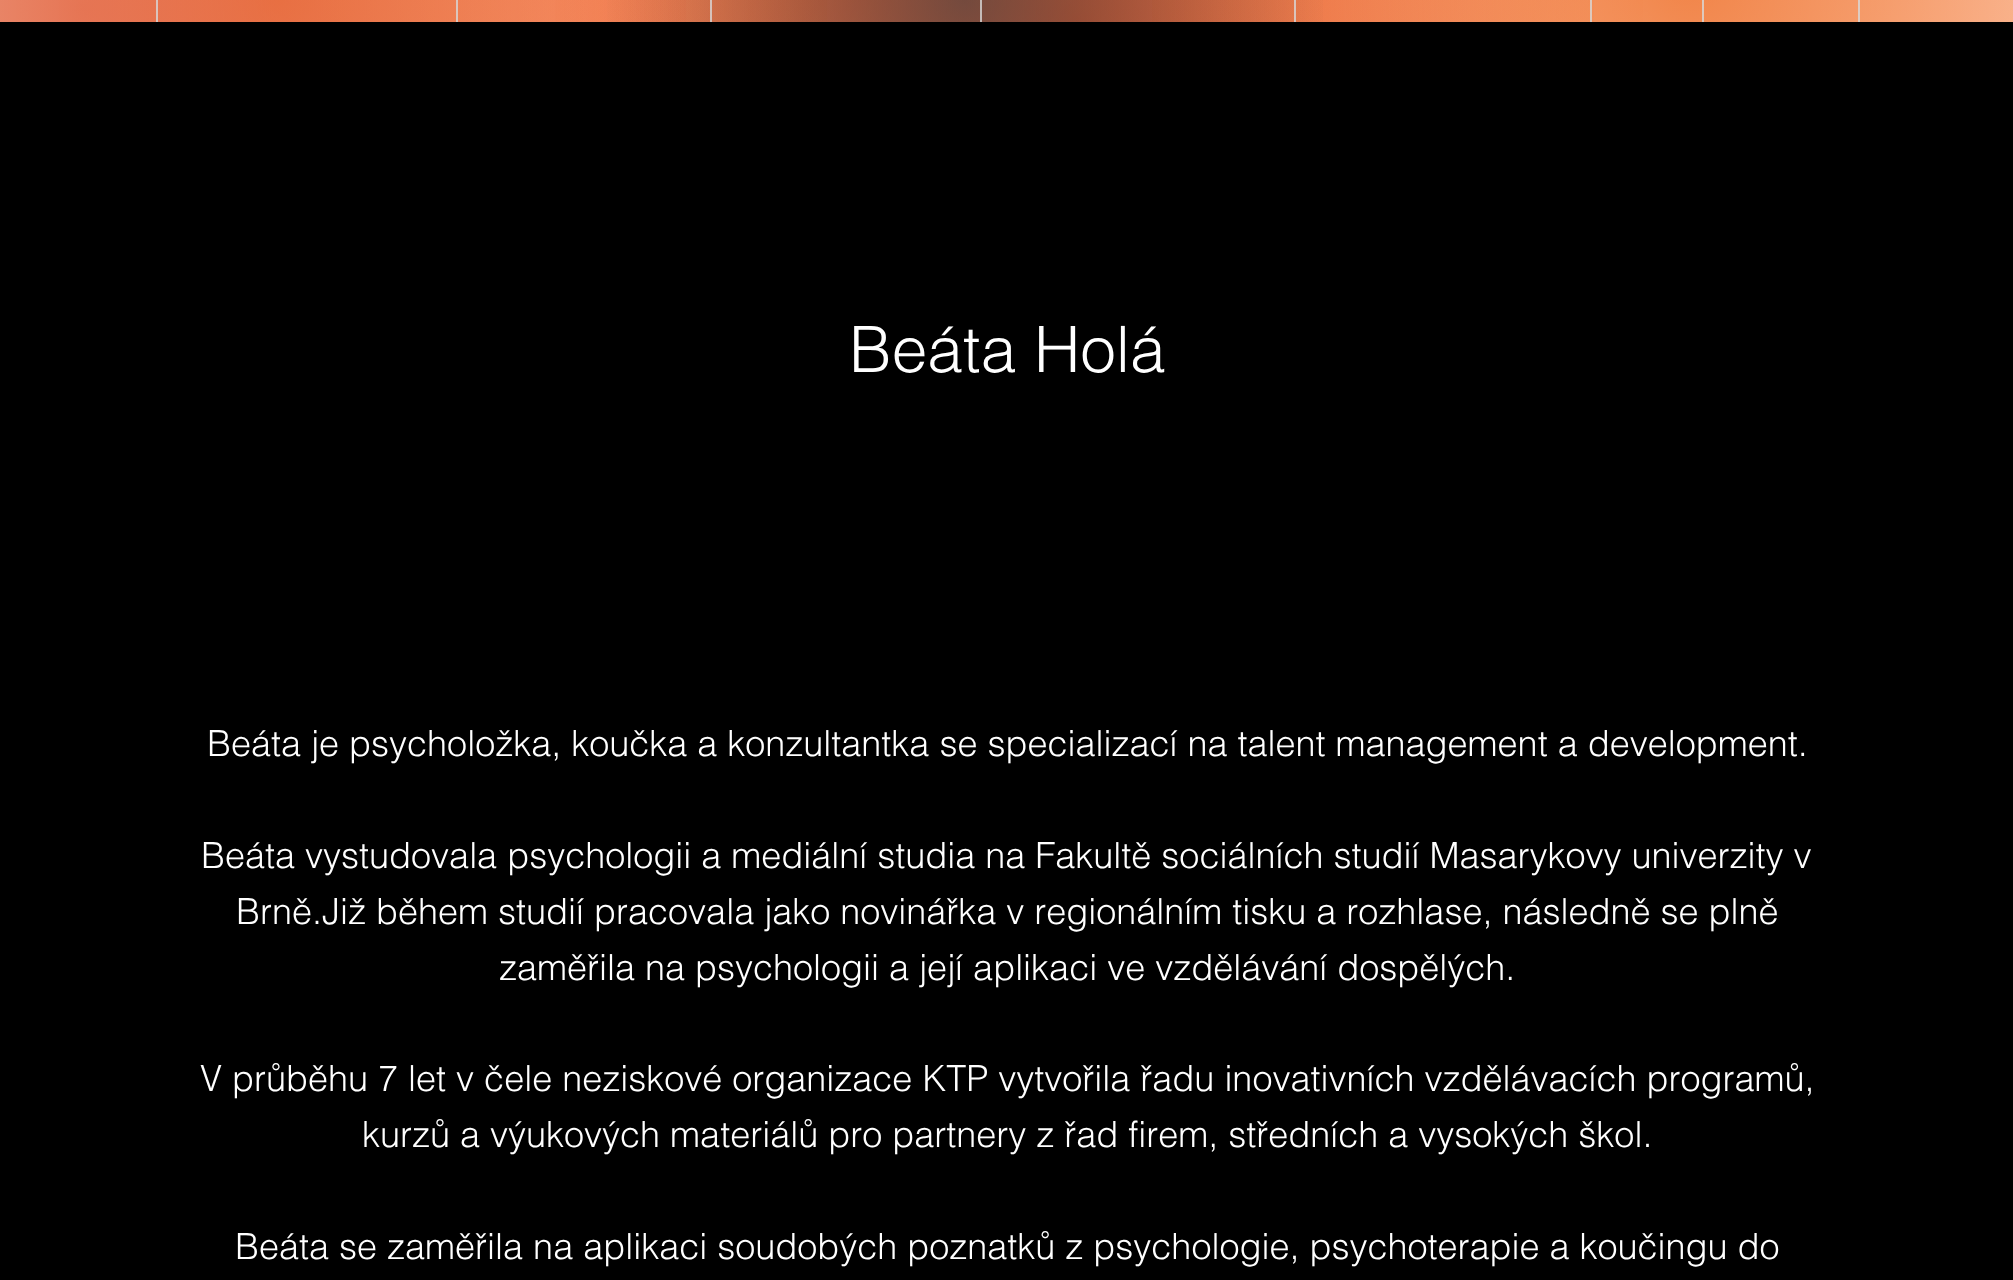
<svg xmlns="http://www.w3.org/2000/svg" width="2013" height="1280">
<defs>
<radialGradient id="g1" gradientUnits="userSpaceOnUse" cx="1887" cy="-35" r="1888"><stop offset="0" stop-color="#ffd0b7"/><stop offset="0.7" stop-color="#fff"/></radialGradient>
<radialGradient id="g2" gradientUnits="userSpaceOnUse" cx="852" cy="-29" r="1163"><stop offset="0" stop-color="#ff4401" stop-opacity="0.67"/><stop offset="0.7" stop-color="#ff4401" stop-opacity="0"/></radialGradient>
<radialGradient id="g3" gradientUnits="userSpaceOnUse" cx="1075" cy="22" r="1077"><stop offset="0" stop-color="#d73501" stop-opacity="0.66"/><stop offset="0.5" stop-color="#d73501" stop-opacity="0"/></radialGradient>
<radialGradient id="g4" gradientUnits="userSpaceOnUse" cx="277" cy="-0.4" r="1738"><stop offset="0" stop-color="#ea5b0c" stop-opacity="0.67"/><stop offset="0.35" stop-color="#ea5b0c" stop-opacity="0"/></radialGradient>
<radialGradient id="g5" gradientUnits="userSpaceOnUse" cx="1687" cy="-22" r="1687"><stop offset="0" stop-color="#ea5b0c" stop-opacity="0.67"/><stop offset="0.35" stop-color="#ea5b0c" stop-opacity="0"/></radialGradient>
<radialGradient id="g6" gradientUnits="userSpaceOnUse" cx="965" cy="-2" r="1050"><stop offset="0" stop-color="#393f44" stop-opacity="0.67"/><stop offset="0.35" stop-color="#393f44" stop-opacity="0"/></radialGradient>
<radialGradient id="g7" gradientUnits="userSpaceOnUse" cx="84" cy="8" r="1931"><stop offset="0" stop-color="#de5738" stop-opacity="0.67"/><stop offset="0.35" stop-color="#de5738" stop-opacity="0"/></radialGradient>
</defs>
<rect width="100%" height="100%" fill="#fff"/>
<rect x="615" width="1398" height="22" fill="url(#g1)"/>
<rect x="59" width="1584" height="22" fill="url(#g2)"/>
<rect x="555" width="1039" height="22" fill="url(#g3)"/>
<rect width="827" height="22" fill="url(#g4)"/>
<rect x="1152" width="861" height="22" fill="url(#g5)"/>
<rect x="607" width="716" height="22" fill="url(#g6)"/>
<rect width="686" height="22" fill="url(#g7)"/>
<rect x="156" width="2" height="22" fill="#dbc4bd"/>
<rect x="456" width="2" height="22" fill="#dcc6bd"/>
<rect x="710" width="2" height="22" fill="#d6c2bb"/>
<rect x="980" width="2" height="22" fill="#d8d8d8cc"/>
<rect x="1294" width="2" height="22" fill="#dac4bc"/>
<rect x="1590" width="2" height="22" fill="#ddc9be"/>
<rect x="1702" width="2" height="22" fill="#d8d8d8cc"/>
<rect x="1858" width="2" height="22" fill="#deccc2"/>
<rect y="22" width="2013" height="1258" fill="#000"/>
<text x="849" y="372" style="font-family:helvetica;font-size:64px;font-weight:300;fill:#fff">Beáta Holá</text>
<text x="207" y="756" style="font-family:helvetica;font-size:36px;font-weight:300;fill:#fff">Beáta je psycholožka, koučka a konzultantka se specializací na talent management a development.</text>
<text x="201" y="868" style="font-family:helvetica;font-size:36px;font-weight:300;fill:#fff">Beáta vystudovala psychologii a mediální studia na Fakultě sociálních studií Masarykovy univerzity v</text>
<text x="236" y="924" style="font-family:helvetica;font-size:36px;font-weight:300;fill:#fff">Brně.Již během studií pracovala jako novinářka v regionálním tisku a rozhlase, následně se plně</text>
<text x="499" y="980" style="font-family:helvetica;font-size:36px;font-weight:300;fill:#fff">zaměřila na psychologii a její aplikaci ve vzdělávání dospělých.</text>
<text x="200" y="1091" style="font-family:helvetica;font-size:36px;font-weight:300;fill:#fff">V průběhu 7 let v čele neziskové organizace KTP vytvořila řadu inovativních vzdělávacích programů,</text>
<text x="362" y="1147" style="font-family:helvetica;font-size:36px;font-weight:300;fill:#fff">kurzů a výukových materiálů pro partnery z řad firem, středních a vysokých škol.</text>
<text x="235" y="1259" style="font-family:helvetica;font-size:36px;font-weight:300;fill:#fff">Beáta se zaměřila na aplikaci soudobých poznatků z psychologie, psychoterapie a koučingu do</text>
</svg>
